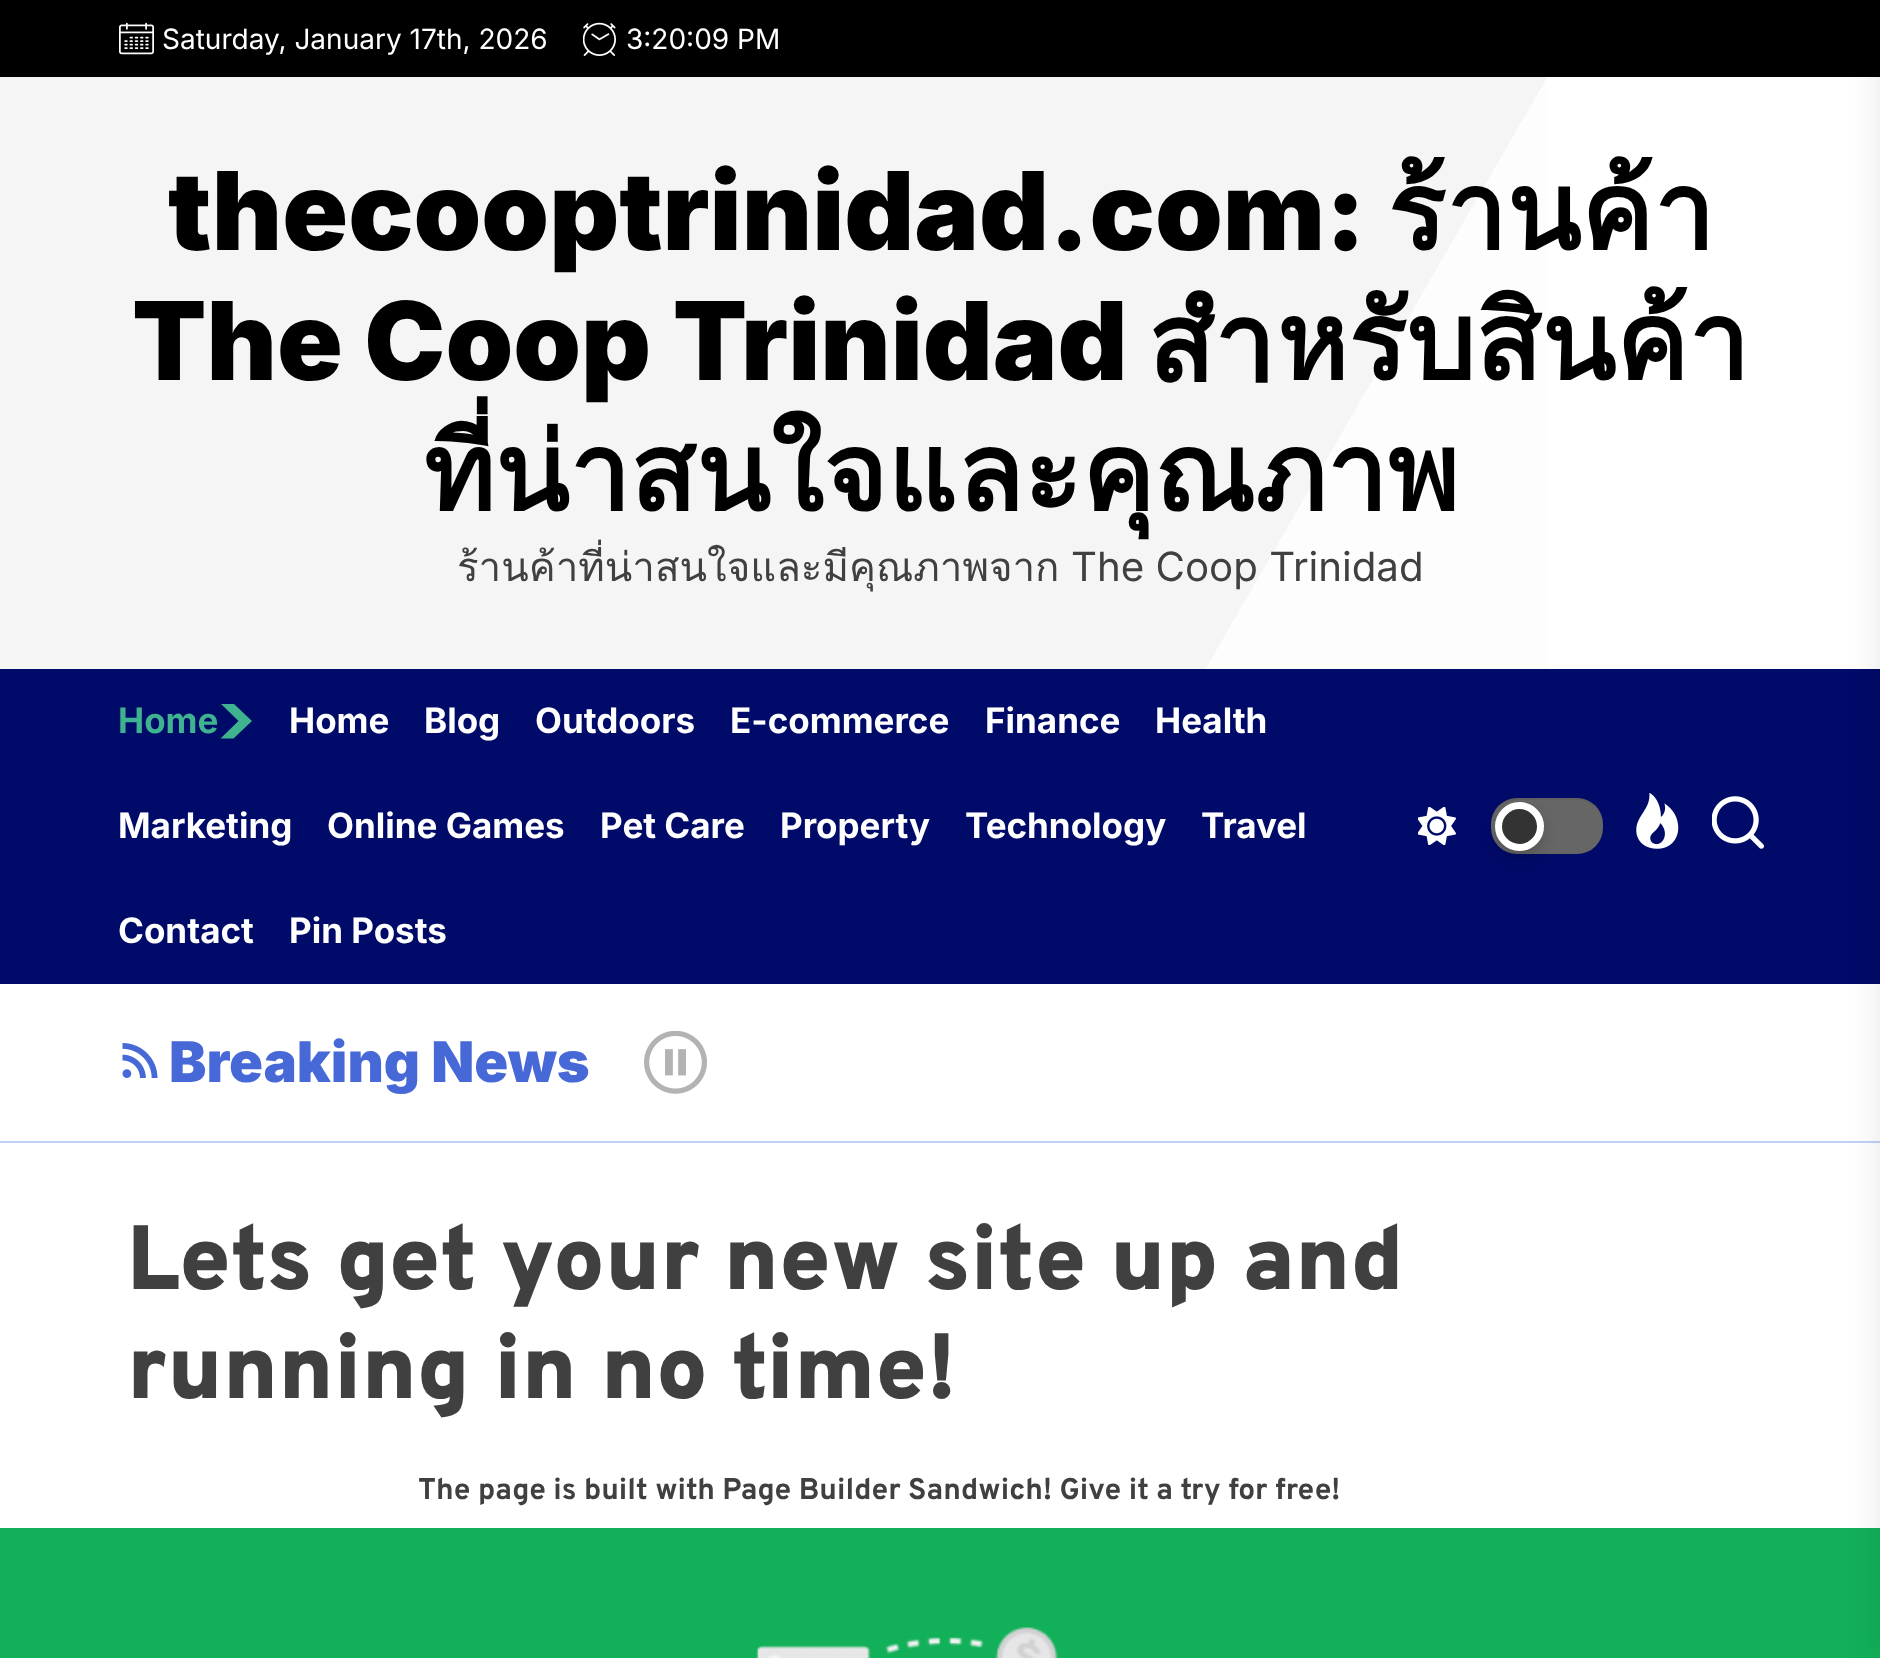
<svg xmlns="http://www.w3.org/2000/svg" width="1880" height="1658">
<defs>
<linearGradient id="g1" gradientUnits="userSpaceOnUse" x1="1859" y1="1022" x2="22" y2="-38"><stop offset="0.35" stop-color="#fdfdfd"/><stop offset="0.35" stop-color="#f5f5f5"/></linearGradient>
<clipPath id="clip1"><rect x="219" y="704" width="35" height="35"/></clipPath>
</defs>
<rect width="100%" height="100%" fill="#fff"/>
<rect y="77" width="1547" height="592" fill="url(#g1)"/>
<rect width="1880" height="77" fill="#000"/>
<image x="119" y="22" width="35" height="33" href="media/1.png"/>
<text x="162" y="49" style="font-family:Inter;font-size:28px;fill:#fff">Saturday, January 17th, 2026</text>
<image x="583" y="22" width="33" height="34" href="media/2.png"/>
<text x="626" y="49" style="font-family:Inter;font-size:28px;fill:#fff">3:20:09 PM</text>
<text x="168" y="250" style="font-family:Inter;font-size:108.5px;font-weight:900;fill:#000">thecooptrinidad.com:</text>
<text x="1387" y="250" style="font-family:Loma;font-size:108.5px;font-weight:bold;fill:#000">ร้านค้า</text>
<text x="132" y="380" style="font-family:Inter;font-size:108.5px;font-weight:900;fill:#000">The Coop Trinidad</text>
<text x="1149" y="380" style="font-family:Loma;font-size:108.5px;font-weight:bold;fill:#000">สำหรับสินค้า</text>
<text x="423" y="511" style="font-family:Loma;font-size:108.5px;font-weight:bold;fill:#000">ที่น่าสนใจและคุณภาพ</text>
<text x="457" y="581" style="font-family:Loma;font-size:40.25px;fill:#404040">ร้านค้าที่น่าสนใจและมีคุณภาพจาก</text>
<text x="1071" y="581" style="font-family:Inter;font-size:40.25px;fill:#404040">The Coop Trinidad</text>
<rect y="669" width="1880" height="315" fill="#000a68"/>
<text x="118" y="733" style="font-family:Inter;font-size:35px;font-weight:bold;fill:#3fb28f">Home</text>
<g clip-path="url(#clip1)">
<path d="M238.5 721l-18-17.5h13l18.5 17.5l-18.5 17.5h-13z" fill="#3fb28f"/>
</g>
<text x="289" y="733" style="font-family:Inter;font-size:35px;font-weight:bold;fill:#fff">Home</text>
<text x="424" y="733" style="font-family:Inter;font-size:35px;font-weight:bold;fill:#fff">Blog</text>
<text x="535" y="733" style="font-family:Inter;font-size:35px;font-weight:bold;fill:#fff">Outdoors</text>
<text x="730" y="733" style="font-family:Inter;font-size:35px;font-weight:bold;fill:#fff">E-commerce</text>
<text x="985" y="733" style="font-family:Inter;font-size:35px;font-weight:bold;fill:#fff">Finance</text>
<text x="1155" y="733" style="font-family:Inter;font-size:35px;font-weight:bold;fill:#fff">Health</text>
<text x="118" y="838" style="font-family:Inter;font-size:35px;font-weight:bold;fill:#fff">Marketing</text>
<text x="327" y="838" style="font-family:Inter;font-size:35px;font-weight:bold;fill:#fff">Online Games</text>
<text x="600" y="838" style="font-family:Inter;font-size:35px;font-weight:bold;fill:#fff">Pet Care</text>
<text x="780" y="838" style="font-family:Inter;font-size:35px;font-weight:bold;fill:#fff">Property</text>
<text x="965" y="838" style="font-family:Inter;font-size:35px;font-weight:bold;fill:#fff">Technology</text>
<text x="1201" y="838" style="font-family:Inter;font-size:35px;font-weight:bold;fill:#fff">Travel</text>
<text x="118" y="943" style="font-family:Inter;font-size:35px;font-weight:bold;fill:#fff">Contact</text>
<text x="289" y="943" style="font-family:Inter;font-size:35px;font-weight:bold;fill:#fff">Pin Posts</text>
<image x="1418" y="807" width="38" height="38" href="media/3.png"/>
<rect x="1491" y="798" width="112" height="56" rx="26" fill="#666"/>
<path d="M1517 800h60c14 0 26 12 26 26v-2c0-14-12-26-26-26h-60c-14 0-26 12-26 26v2c0-14 12-26 26-26z" fill="#0000000d"/>
<rect x="1495" y="809" width="49" height="49" rx="24.5" fill="#00000029" filter="blur(7px)"/>
<circle cx="1519.5" cy="826.5" r="21" fill="#333" stroke="#fff" stroke-width="7"/>
<image x="1636" y="793" width="43" height="56" href="media/4.png"/>
<image x="1712" y="796" width="52" height="53" href="media/5.png"/>
<rect y="1141" width="1880" height="2" fill="#c2cff8"/>
<rect y="1528" width="1880" height="130" fill="#12b059"/>
<rect x="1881" width="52" height="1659" fill="#0000001a" filter="blur(17.5px)"/>
<image x="122" y="1043" width="36" height="35" href="media/6.png"/>
<text x="169" y="1082" style="font-family:Inter;font-size:56px;font-weight:900;fill:#4769d8">Breaking News</text>
<image x="644" y="1031" width="63" height="63" href="media/7.png"/>
<text x="127" y="1289" style="font-family:Overpass;font-size:91px;font-weight:900;fill:#404040">Lets get your new site up and</text>
<text x="127" y="1398" style="font-family:Overpass;font-size:91px;font-weight:900;fill:#404040">running in no time!</text>
<text x="418" y="1499" style="font-family:Overpass;font-size:29.9px;font-weight:bold;fill:#404040">The page is built with Page Builder Sandwich! Give it a try for free!</text>
<image x="756" y="1627" width="302" height="31" href="media/8.png"/>
</svg>
